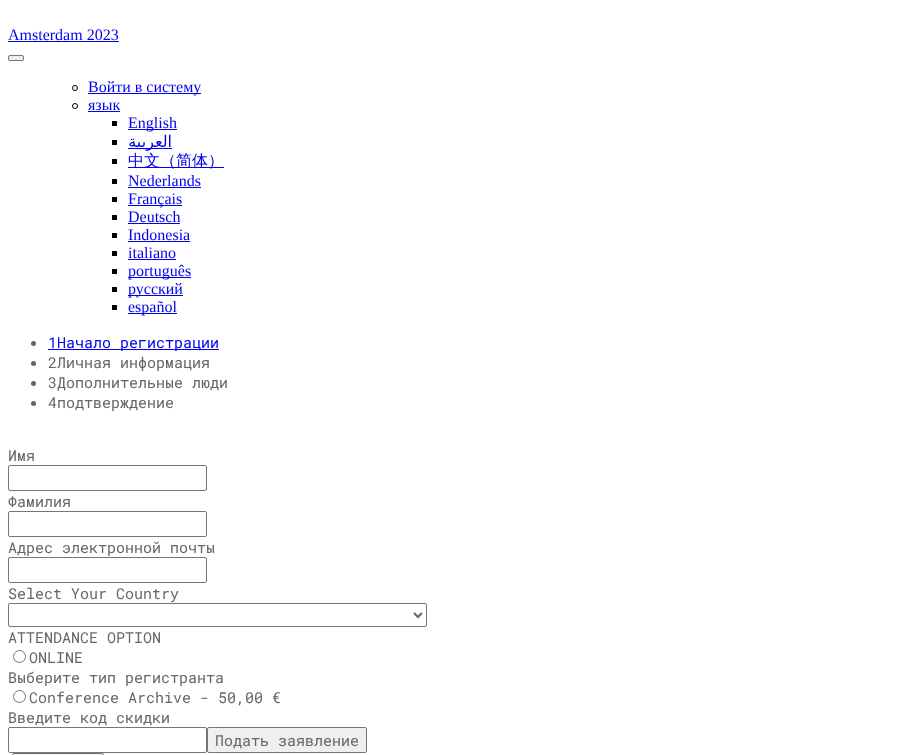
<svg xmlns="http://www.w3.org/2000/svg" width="924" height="755">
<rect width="100%" height="100%" fill="#fff"/>
<text x="8" y="40" style="font-family:Liberation Serif;font-size:16px;fill:#00e">Amsterdam 2023</text>
<rect x="8" y="41" width="111" height="1" fill="#00e"/>
<rect x="8.5" y="55.5" width="15" height="5" rx="1.5" fill="#efefef" stroke="#767676"/>
<circle cx="75" cy="88" r="2.5" fill="none" stroke="#000"/>
<rect x="88" y="93" width="113" height="1" fill="#00e"/>
<text x="88" y="92" style="font-family:Liberation Serif;font-size:16px;fill:#00e">Войти в систему</text>
<circle cx="75" cy="106" r="2.5" fill="none" stroke="#000"/>
<text x="88" y="110" style="font-family:Liberation Serif;font-size:16px;fill:#00e">язык</text>
<rect x="88" y="111" width="32" height="1" fill="#00e"/>
<rect x="112" y="121" width="5" height="5" fill="#000"/>
<rect x="128" y="129" width="49" height="1" fill="#00e"/>
<text x="128" y="128" style="font-family:Liberation Serif;font-size:16px;fill:#00e">English</text>
<rect x="112" y="140" width="5" height="5" fill="#000"/>
<rect x="128" y="148" width="44" height="1" fill="#00e"/>
<text x="172" y="147" style="font-family:DejaVu Sans;font-size:16px;direction:rtl;fill:#00e">العربية</text>
<rect x="112" y="159" width="5" height="5" fill="#000"/>
<rect x="128" y="167" width="96" height="1" fill="#00e"/>
<text x="128" y="166" style="font-family:WenQuanYi Zen Hei;font-size:16px;font-weight:500;fill:#00e">中文（简体）</text>
<rect x="112" y="179" width="5" height="5" fill="#000"/>
<text x="128" y="186" style="font-family:Liberation Serif;font-size:16px;fill:#00e">Nederlands</text>
<rect x="128" y="187" width="73" height="1" fill="#00e"/>
<rect x="112" y="197" width="5" height="5" fill="#000"/>
<rect x="128" y="205" width="54" height="1" fill="#00e"/>
<text x="128" y="204" style="font-family:Liberation Serif;font-size:16px;fill:#00e">Français</text>
<rect x="112" y="215" width="5" height="5" fill="#000"/>
<text x="128" y="222" style="font-family:Liberation Serif;font-size:16px;fill:#00e">Deutsch</text>
<rect x="128" y="223" width="52" height="1" fill="#00e"/>
<rect x="112" y="233" width="5" height="5" fill="#000"/>
<text x="128" y="240" style="font-family:Liberation Serif;font-size:16px;fill:#00e">Indonesia</text>
<rect x="128" y="241" width="62" height="1" fill="#00e"/>
<rect x="112" y="251" width="5" height="5" fill="#000"/>
<text x="128" y="258" style="font-family:Liberation Serif;font-size:16px;fill:#00e">italiano</text>
<rect x="128" y="259" width="48" height="1" fill="#00e"/>
<rect x="112" y="269" width="5" height="5" fill="#000"/>
<rect x="128" y="277" width="63" height="1" fill="#00e"/>
<text x="128" y="276" style="font-family:Liberation Serif;font-size:16px;fill:#00e">português</text>
<rect x="112" y="287" width="5" height="5" fill="#000"/>
<rect x="128" y="295" width="55" height="1" fill="#00e"/>
<text x="128" y="294" style="font-family:Liberation Serif;font-size:16px;fill:#00e">русский</text>
<rect x="112" y="305" width="5" height="5" fill="#000"/>
<rect x="128" y="313" width="49" height="1" fill="#00e"/>
<text x="128" y="312" style="font-family:Liberation Serif;font-size:16px;fill:#00e">español</text>
<circle cx="33.5" cy="343.5" r="2.5" fill="#666"/>
<rect x="48" y="349" width="171" height="1" fill="#00e"/>
<text x="48" y="348" style="font-family:Roboto Mono;font-size:15px;fill:#00e">1Начало регистрации</text>
<circle cx="33.5" cy="363.5" r="2.5" fill="#666"/>
<text x="48" y="368" style="font-family:Roboto Mono;font-size:15px;fill:#666">2Личная информация</text>
<circle cx="33.5" cy="383.5" r="2.5" fill="#666"/>
<text x="48" y="388" style="font-family:Roboto Mono;font-size:15px;fill:#666">3Дополнительные люди</text>
<circle cx="33.5" cy="403.5" r="2.5" fill="#666"/>
<text x="48" y="408" style="font-family:Roboto Mono;font-size:15px;fill:#666">4подтверждение</text>
<text x="8" y="461" style="font-family:Roboto Mono;font-size:15px;fill:#666">Имя</text>
<rect x="8.5" y="465.5" width="198" height="25" rx="1.5" fill="none" stroke="#767676"/>
<text x="8" y="507" style="font-family:Roboto Mono;font-size:15px;fill:#666">Фамилия</text>
<rect x="8.5" y="511.5" width="198" height="25" rx="1.5" fill="none" stroke="#767676"/>
<text x="8" y="553" style="font-family:Roboto Mono;font-size:15px;fill:#666">Адрес электронной почты</text>
<rect x="8.5" y="557.5" width="198" height="25" rx="1.5" fill="none" stroke="#767676"/>
<text x="8" y="599" style="font-family:Roboto Mono;font-size:15px;fill:#666">Select Your Country</text>
<rect x="8.5" y="603.5" width="418" height="23" rx="1.5" fill="none" stroke="#767676"/>
<path d="M414 613l4 4l4-4" fill="none" stroke="#666" stroke-width="2"/>
<text x="8" y="643" style="font-family:Roboto Mono;font-size:15px;fill:#666">ATTENDANCE OPTION</text>
<circle cx="19.5" cy="656.5" r="6" fill="none" stroke="#767676"/>
<text x="29" y="663" style="font-family:Roboto Mono;font-size:15px;fill:#666">ONLINE</text>
<text x="8" y="683" style="font-family:Roboto Mono;font-size:15px;fill:#666">Выберите тип регистранта</text>
<circle cx="19.5" cy="696.5" r="6" fill="none" stroke="#767676"/>
<text x="29" y="703" style="font-family:Roboto Mono;font-size:15px;fill:#666">Conference Archive - 50,00 €</text>
<text x="8" y="723" style="font-family:Roboto Mono;font-size:15px;fill:#666">Введите код скидки</text>
<rect x="8.5" y="727.5" width="198" height="25" rx="1.5" fill="none" stroke="#767676"/>
<rect x="207.5" y="727.5" width="159" height="25" rx="1.5" fill="#efefef" stroke="#767676"/>
<text x="215" y="746" style="font-family:Roboto Mono;font-size:15px;fill:#666">Подать заявление</text>
<rect x="12.5" y="753.5" width="91" height="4" rx="1.5" fill="#efefef" stroke="#767676"/>
</svg>
